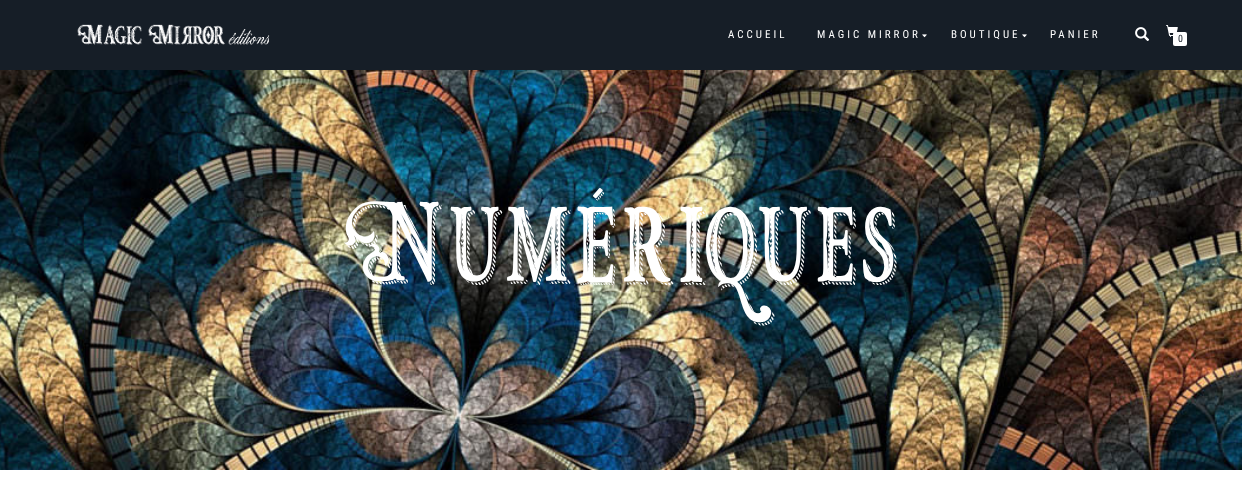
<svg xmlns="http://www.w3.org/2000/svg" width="1242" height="500">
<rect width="100%" height="100%" fill="#fff"/>
<rect width="1242" height="70" fill="#161e27"/>
<image x="77" y="24" width="193" height="21" href="media/1.png"/>
<text x="728" y="38" style="font-family:Roboto Condensed;font-size:11px;letter-spacing:3px;fill:#fff">ACCUEIL</text>
<text x="817" y="38" style="font-family:Roboto Condensed;font-size:11px;letter-spacing:3px;fill:#fff">MAGIC MIRROR</text>
<image x="922" y="34" width="5" height="4" href="media/2.png"/>
<text x="951" y="38" style="font-family:Roboto Condensed;font-size:11px;letter-spacing:3px;fill:#fff">BOUTIQUE</text>
<image x="1022" y="34" width="5" height="4" href="media/2.png"/>
<text x="1050" y="38" style="font-family:Roboto Condensed;font-size:11px;letter-spacing:3px;fill:#fff">PANIER</text>
<image x="1135" y="27" width="15" height="14" href="media/3.png"/>
<image x="1166" y="25" width="12" height="12" href="media/4.png"/>
<rect x="1173" y="32" width="14" height="14" rx="2" fill="#fff"/>
<text x="1178" y="42" style="font-family:Roboto Condensed;font-size:10px;fill:#161e27">0</text>
<image x="0" y="70" width="1242" height="400" href="media/5.png"/>
<text x="344" y="285" style="font-family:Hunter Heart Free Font;font-size:100px;letter-spacing:4px;fill:#fff">Numériques</text>
</svg>
